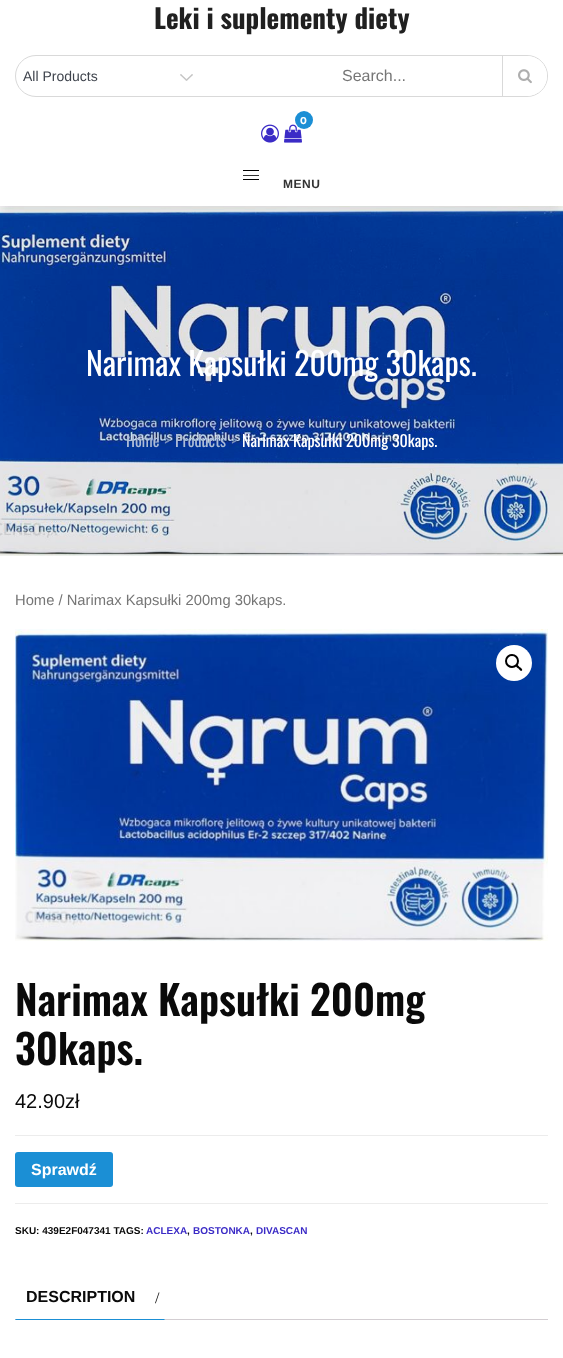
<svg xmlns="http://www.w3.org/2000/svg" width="563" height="1358">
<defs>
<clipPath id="clip1"><rect x="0" y="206" width="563" height="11"/></clipPath>
</defs>
<rect width="100%" height="100%" fill="#fff"/>
<image x="0" y="206" width="563" height="350" href="media/5.png"/>
<g clip-path="url(#clip1)">
<rect x="3" y="12" width="557" height="200" fill="#8282822e" filter="blur(4px)"/>
</g>
<text x="154" y="29" style="font-family:Oswald;font-size:27px;font-weight:bold;fill:#202020">Leki i suplementy diety</text>
<rect x="15.5" y="55.5" width="532" height="41" rx="20.5" fill="none" stroke="#d9d9d9"/>
<image x="180" y="74" width="13" height="7" href="media/1.png"/>
<text x="23" y="81" style="font-family:Liberation Sans;font-size:14px;fill:#3f444d">All Products</text>
<path d="M202 56h325c11 0 20 9 20 20c0 11-9 20-20 20h-325z" fill="#fff"/>
<text x="342" y="81" style="font-family:Liberation Sans;font-size:16px;fill:#767676">Search...</text>
<rect x="502" y="56" width="1" height="40" fill="#d9d9d9"/>
<image x="518" y="69" width="14" height="15" href="media/2.png"/>
<image x="284" y="124" width="18" height="19" href="media/3.png"/>
<circle cx="304" cy="120" r="9" fill="#1b8fd5"/>
<text x="300" y="124" style="font-family:Montserrat;font-size:10px;font-weight:bold;fill:#fff">0</text>
<image x="261" y="124" width="18" height="19" href="media/4.png"/>
<rect x="243" y="170" width="16" height="1" fill="#000"/>
<rect x="243" y="175" width="16" height="1" fill="#333"/>
<rect x="243" y="179" width="16" height="1" fill="#000"/>
<text x="283" y="188" style="font-family:Liberation Sans;font-size:12px;font-weight:bold;letter-spacing:0.5px;fill:#333">MENU</text>
<text x="86" y="376" style="font-family:Oswald;font-size:32px;fill:#fff">Narimax Kapsułki 200mg 30kaps.</text>
<text x="126" y="447" style="font-family:Oswald;font-size:16px;fill:#acbcd8">Home</text>
<text x="164" y="447" style="font-family:Oswald;font-size:16px;fill:#7991bd">&gt;</text>
<text x="175" y="447" style="font-family:Oswald;font-size:16px;fill:#acbcd8">Products</text>
<text x="231" y="447" style="font-family:Oswald;font-size:16px;fill:#7991bd">&gt;</text>
<text x="242" y="447" style="font-family:Oswald;font-size:16px;fill:#fff">Narimax Kapsułki 200mg 30kaps.</text>
<text x="15" y="605" style="font-family:Liberation Sans;font-size:14.75px;fill:#767676">Home / Narimax Kapsułki 200mg 30kaps.</text>
<image x="15" y="629" width="533" height="312" href="media/6.png"/>
<circle cx="514" cy="663" r="18" fill="#fff"/>
<circle cx="512" cy="661" r="6" fill="none" stroke="#000" stroke-width="2"/>
<path d="M516 665c1.5-1 3 1.5 3.5 2c1 .5 3.5 2.5 2.5 3.5c-1.5 1.5-3-1.5-3.5-2c-1-.5-3.5-2.5-2.5-3.5z" fill="#000"/>
<text x="15" y="1016" style="font-family:Oswald;font-size:40.9px;font-weight:600;fill:#0a0a0a">Narimax Kapsułki 200mg</text>
<text x="15" y="1065" style="font-family:Oswald;font-size:40.9px;font-weight:600;fill:#0a0a0a">30kaps.</text>
<text x="15" y="1108" style="font-family:Liberation Sans;font-size:20px;fill:#0a0a0a">42.90zł</text>
<rect x="15" y="1135" width="533" height="1" fill="#ececec"/>
<rect x="15" y="1203" width="533" height="1" fill="#ececec"/>
<rect x="15" y="1152" width="98" height="35" rx="3" fill="#1b8fd5"/>
<text x="31" y="1175" style="font-family:Liberation Sans;font-size:16px;font-weight:bold;fill:#fff">Sprawdź</text>
<text x="15" y="1234" style="font-family:Liberation Sans;font-size:10px;font-weight:bold;fill:#0a0a0a">SKU: 439E2F047341 TAGS:</text>
<text x="146" y="1234" style="font-family:Liberation Sans;font-size:10px;font-weight:bold;fill:#3b2bc6">ACLEXA</text>
<text x="187" y="1234" style="font-family:Liberation Sans;font-size:10px;font-weight:bold;fill:#0a0a0a">,</text>
<text x="193" y="1234" style="font-family:Liberation Sans;font-size:10px;font-weight:bold;fill:#3b2bc6">BOSTONKA</text>
<text x="250" y="1234" style="font-family:Liberation Sans;font-size:10px;font-weight:bold;fill:#0a0a0a">,</text>
<text x="256" y="1234" style="font-family:Liberation Sans;font-size:10px;font-weight:bold;fill:#3b2bc6">DIVASCAN</text>
<rect x="15" y="1319" width="533" height="1" fill="#d3ced2"/>
<path d="M165 1320h-150l1-1h148z" fill="#1b8fd5"/>
<text x="26" y="1302" style="font-family:Liberation Sans;font-size:16px;font-weight:bold;fill:#0a0a0a">DESCRIPTION</text>
<text x="155" y="1303" style="font-family:Liberation Serif;font-size:16px;fill:#0a0a0a">/</text>
</svg>
